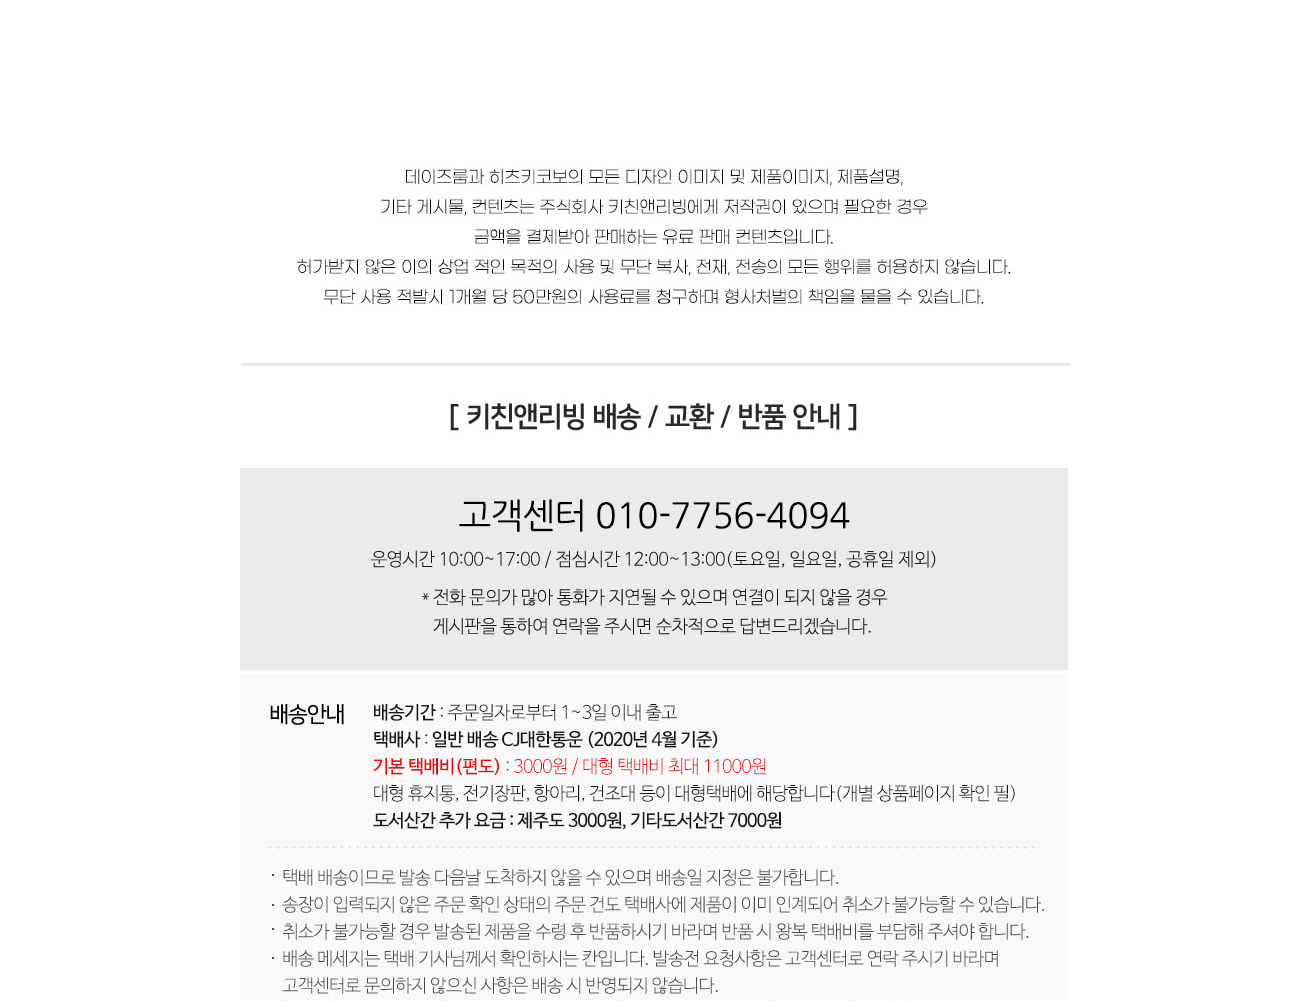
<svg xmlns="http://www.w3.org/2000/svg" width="1308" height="1001">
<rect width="100%" height="100%" fill="#fff"/>
<image x="240" y="162" width="831" height="839" href="media/1.png"/>
</svg>
